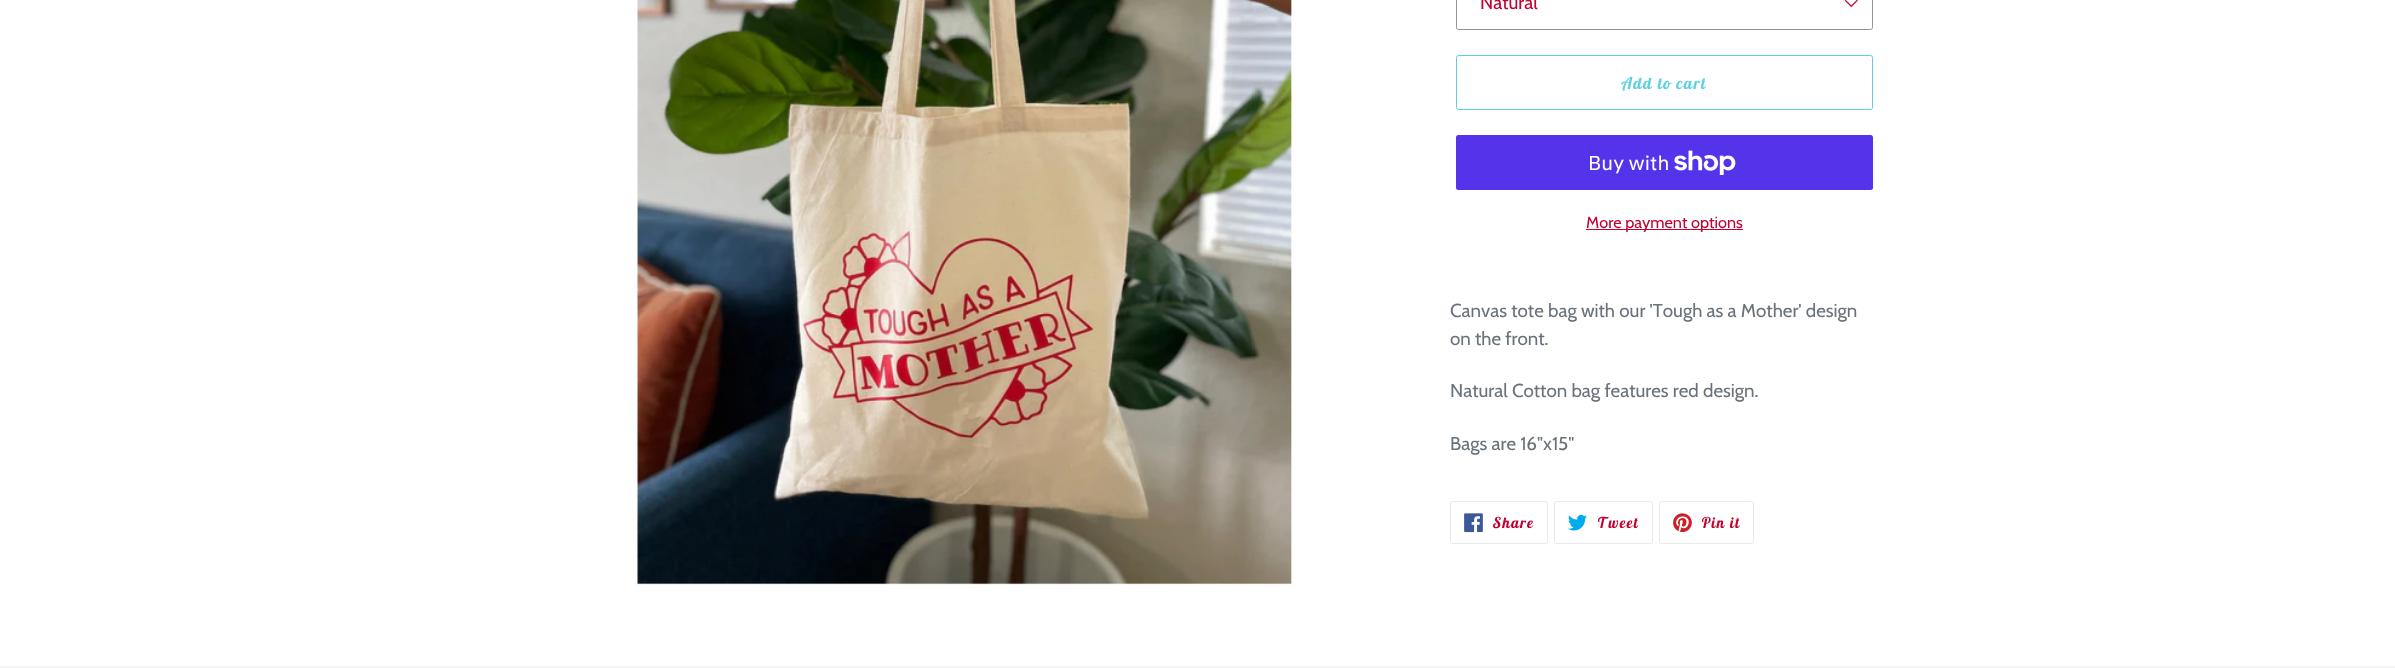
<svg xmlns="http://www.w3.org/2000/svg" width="2395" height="668">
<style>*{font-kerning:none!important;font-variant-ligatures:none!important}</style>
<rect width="100%" height="100%" fill="#fff"/>
<image x="637" y="0" width="655" height="585" href="media/1.png"/>
<image x="1844" y="0" width="14" height="8" href="media/2.png"/>
<rect x="1456.5" y="-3.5" width="416" height="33" rx="2" fill="none" stroke="#949494"/>
<text x="1480" y="9" style="font-family:Cabin;font-size:18.75px;fill:#c10230">Natural</text>
<rect x="1456.5" y="55.5" width="416" height="54" rx="2" fill="none" stroke="#5fd0df"/>
<text x="1622" y="89" style="font-family:Lobster Two;font-size:16.25px;font-weight:bold;font-style:italic;letter-spacing:1.25px;fill:#5fd0df">Add to cart</text>
<rect x="1456" y="135" width="417" height="55" rx="2.5" fill="#5433eb"/>
<text x="1588" y="170" style="font-family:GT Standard;font-size:20px;fill:#fff">Buy with</text>
<image x="1674" y="150" width="62" height="25" href="media/3.png"/>
<rect x="1586" y="229" width="157" height="1" fill="#c10230"/>
<text x="1586" y="228" style="font-family:Cabin;font-size:16.25px;fill:#c10230">More payment options</text>
<text x="1450" y="317" style="font-family:Cabin;font-size:18.75px;fill:#69727b">Canvas tote bag with our 'Tough as a Mother' design</text>
<text x="1450" y="345" style="font-family:Cabin;font-size:18.75px;fill:#69727b">on the front.</text>
<text x="1450" y="397" style="font-family:Cabin;font-size:18.75px;fill:#69727b">Natural Cotton bag features red design.</text>
<text x="1450" y="450" style="font-family:Cabin;font-size:18.75px;fill:#69727b">Bags are 16"x15"</text>
<rect x="1450.5" y="501.5" width="97" height="42" rx="2" fill="none" stroke="#e8e9eb"/>
<image x="1464" y="513" width="19" height="20" href="media/4.png"/>
<text x="1493" y="528" style="font-family:Lobster Two;font-size:15px;font-weight:bold;font-style:italic;letter-spacing:1.25px;fill:#c10230">Share</text>
<rect x="1554.5" y="501.5" width="98" height="42" rx="2" fill="none" stroke="#e8e9eb"/>
<image x="1568" y="514" width="19" height="17" href="media/5.png"/>
<text x="1597" y="528" style="font-family:Lobster Two;font-size:15px;font-weight:bold;font-style:italic;letter-spacing:1.25px;fill:#c10230">Tweet</text>
<rect x="1659.5" y="501.5" width="94" height="42" rx="2" fill="none" stroke="#e8e9eb"/>
<image x="1673" y="513" width="19" height="20" href="media/6.png"/>
<text x="1701" y="528" style="font-family:Lobster Two;font-size:15px;font-weight:bold;font-style:italic;letter-spacing:1.25px;fill:#c10230">Pin it</text>
<rect y="666" width="2395" height="2" fill="#f5f5f5"/>
</svg>
